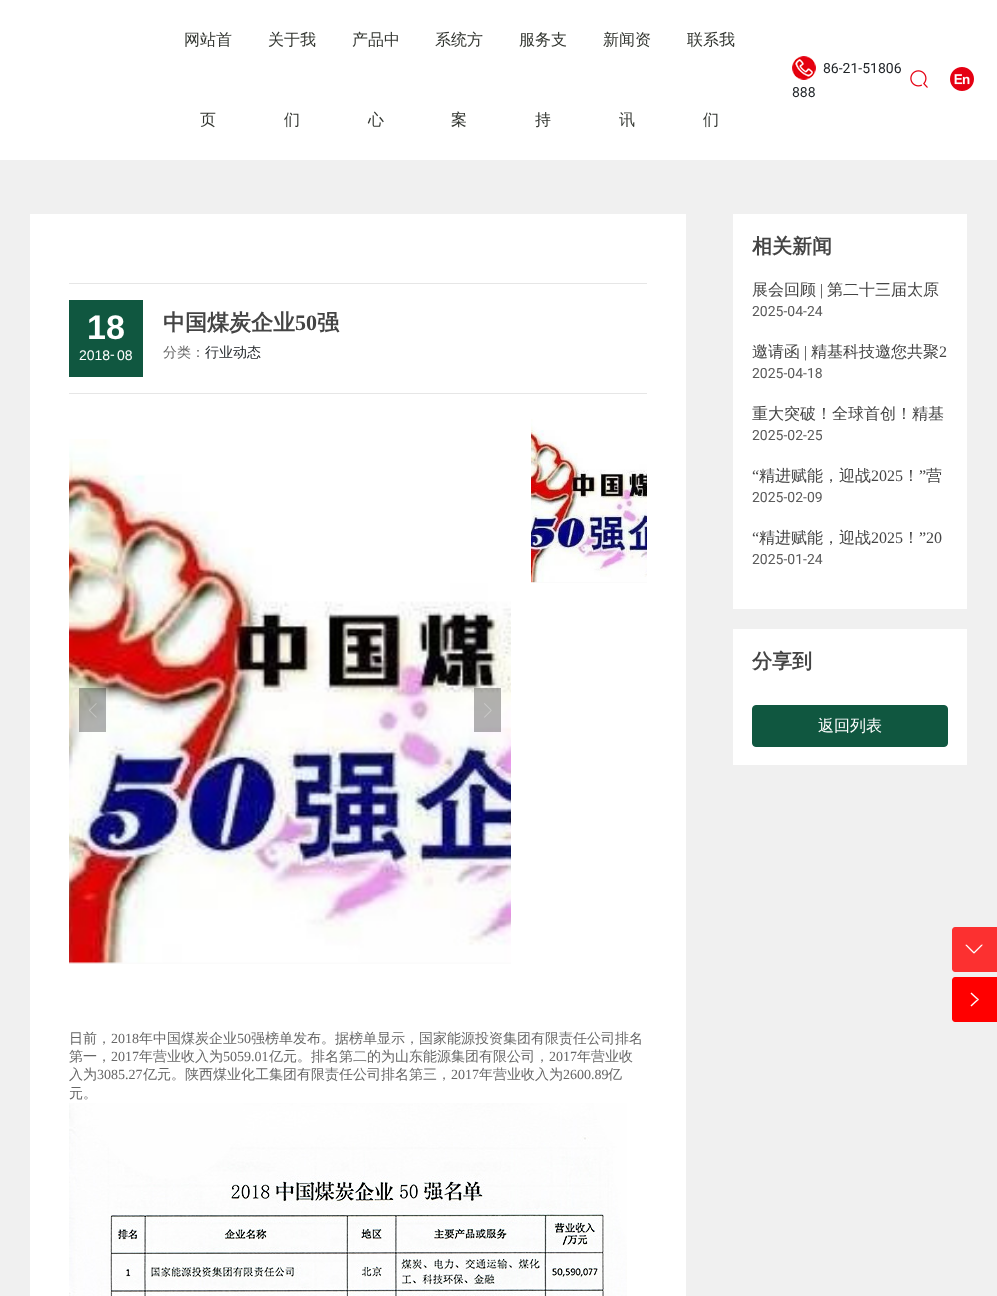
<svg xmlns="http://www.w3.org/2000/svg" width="997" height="1296">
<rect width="100%" height="100%" fill="#f0f0f0"/>
<rect width="997" height="160" fill="#fff"/>
<text x="184" y="45" style="font-family:WenQuanYi Zen Hei;font-size:16px;font-weight:500;fill:#333631">网站首</text>
<text x="200" y="125" style="font-family:WenQuanYi Zen Hei;font-size:16px;font-weight:500;fill:#333631">页</text>
<text x="268" y="45" style="font-family:WenQuanYi Zen Hei;font-size:16px;font-weight:500;fill:#333631">关于我</text>
<text x="284" y="125" style="font-family:WenQuanYi Zen Hei;font-size:16px;font-weight:500;fill:#333631">们</text>
<text x="352" y="45" style="font-family:WenQuanYi Zen Hei;font-size:16px;font-weight:500;fill:#333631">产品中</text>
<text x="368" y="125" style="font-family:WenQuanYi Zen Hei;font-size:16px;font-weight:500;fill:#333631">心</text>
<text x="435" y="45" style="font-family:WenQuanYi Zen Hei;font-size:16px;font-weight:500;fill:#333631">系统方</text>
<text x="451" y="125" style="font-family:WenQuanYi Zen Hei;font-size:16px;font-weight:500;fill:#333631">案</text>
<text x="519" y="45" style="font-family:WenQuanYi Zen Hei;font-size:16px;font-weight:500;fill:#333631">服务支</text>
<text x="535" y="125" style="font-family:WenQuanYi Zen Hei;font-size:16px;font-weight:500;fill:#333631">持</text>
<text x="603" y="45" style="font-family:WenQuanYi Zen Hei;font-size:16px;font-weight:500;fill:#333631">新闻资</text>
<text x="619" y="125" style="font-family:WenQuanYi Zen Hei;font-size:16px;font-weight:500;fill:#333631">讯</text>
<text x="687" y="45" style="font-family:WenQuanYi Zen Hei;font-size:16px;font-weight:500;fill:#333631">联系我</text>
<text x="703" y="125" style="font-family:WenQuanYi Zen Hei;font-size:16px;font-weight:500;fill:#333631">们</text>
<image x="792" y="56" width="24" height="24" href="media/1.png"/>
<text x="823" y="73" style="font-family:Roboto;font-size:14px;fill:#212529">86-21-51806</text>
<text x="792" y="97" style="font-family:Roboto;font-size:14px;fill:#212529">888</text>
<image x="910" y="70" width="18" height="18" href="media/2.png"/>
<image x="950" y="67" width="24" height="24" href="media/3.png"/>
<rect x="30" y="214" width="656" height="1082" fill="#fff"/>
<rect x="69" y="283" width="578" height="1" fill="#e6e6e6"/>
<rect x="69" y="300" width="74" height="77" fill="#105740"/>
<text x="87" y="339" style="font-family:Liberation Sans;font-size:34px;font-weight:bold;fill:#fff">18</text>
<text x="79" y="360" style="font-family:Liberation Sans;font-size:14px;fill:#fff">2018</text>
<text x="110" y="359" style="font-family:Liberation Sans;font-size:14px;fill:#fff">-</text>
<text x="117" y="360" style="font-family:Liberation Sans;font-size:14px;fill:#fff">08</text>
<text x="163" y="330" style="font-family:WenQuanYi Zen Hei;font-size:22px;font-weight:bold;fill:#444">中国煤炭企业</text>
<text x="295" y="330" style="font-family:Liberation Serif;font-size:22px;font-weight:bold;fill:#444">50</text>
<text x="317" y="330" style="font-family:WenQuanYi Zen Hei;font-size:22px;font-weight:bold;fill:#444">强</text>
<text x="163" y="357" style="font-family:WenQuanYi Zen Hei;font-size:14px;font-weight:500;fill:#666">分类：</text>
<text x="205" y="357" style="font-family:WenQuanYi Zen Hei;font-size:14px;font-weight:500;fill:#212529">行业动态</text>
<rect x="69" y="393" width="578" height="1" fill="#e6e6e6"/>
<image x="69" y="439" width="442" height="525" href="media/4.png"/>
<rect x="79" y="688" width="27" height="44" fill="#0000004d"/>
<image x="89" y="703" width="8" height="15" href="media/5.png"/>
<rect x="474" y="688" width="27" height="44" fill="#0000004d"/>
<image x="484" y="703" width="8" height="15" href="media/6.png"/>
<image x="531" y="419" width="116" height="164" href="media/7.png"/>
<text x="69" y="1043" style="font-family:WenQuanYi Zen Hei;font-size:14px;font-weight:500;fill:#666">日前，</text>
<text x="111" y="1043" style="font-family:Liberation Serif;font-size:14px;fill:#666">2018</text>
<text x="139" y="1043" style="font-family:WenQuanYi Zen Hei;font-size:14px;font-weight:500;fill:#666">年中国煤炭企业</text>
<text x="237" y="1043" style="font-family:Liberation Serif;font-size:14px;fill:#666">50</text>
<text x="251" y="1043" style="font-family:WenQuanYi Zen Hei;font-size:14px;font-weight:500;fill:#666">强榜单发布。据榜单显示，国家能源投资集团有限责任公司排名</text>
<text x="69" y="1061" style="font-family:WenQuanYi Zen Hei;font-size:14px;font-weight:500;fill:#666">第一，</text>
<text x="111" y="1061" style="font-family:Liberation Serif;font-size:14px;fill:#666">2017</text>
<text x="139" y="1061" style="font-family:WenQuanYi Zen Hei;font-size:14px;font-weight:500;fill:#666">年营业收入为</text>
<text x="223" y="1061" style="font-family:Liberation Serif;font-size:14px;fill:#666">5059.01</text>
<text x="269" y="1061" style="font-family:WenQuanYi Zen Hei;font-size:14px;font-weight:500;fill:#666">亿元。排名第二的为山东能源集团有限公司，</text>
<text x="549" y="1061" style="font-family:Liberation Serif;font-size:14px;fill:#666">2017</text>
<text x="577" y="1061" style="font-family:WenQuanYi Zen Hei;font-size:14px;font-weight:500;fill:#666">年营业收</text>
<text x="69" y="1079" style="font-family:WenQuanYi Zen Hei;font-size:14px;font-weight:500;fill:#666">入为</text>
<text x="97" y="1079" style="font-family:Liberation Serif;font-size:14px;fill:#666">3085.27</text>
<text x="143" y="1079" style="font-family:WenQuanYi Zen Hei;font-size:14px;font-weight:500;fill:#666">亿元。陕西煤业化工集团有限责任公司排名第三，</text>
<text x="451" y="1079" style="font-family:Liberation Serif;font-size:14px;fill:#666">2017</text>
<text x="479" y="1079" style="font-family:WenQuanYi Zen Hei;font-size:14px;font-weight:500;fill:#666">年营业收入为</text>
<text x="563" y="1079" style="font-family:Liberation Serif;font-size:14px;fill:#666">2600.89</text>
<text x="608" y="1079" style="font-family:WenQuanYi Zen Hei;font-size:14px;font-weight:500;fill:#666">亿</text>
<text x="69" y="1098" style="font-family:WenQuanYi Zen Hei;font-size:14px;font-weight:500;fill:#666">元。</text>
<image x="69" y="1103" width="558" height="193" href="media/8.png"/>
<rect x="733" y="214" width="234" height="395" fill="#fff"/>
<text x="752" y="253" style="font-family:WenQuanYi Zen Hei;font-size:20px;font-weight:bold;fill:#444">相关新闻</text>
<text x="752" y="295" style="font-family:WenQuanYi Zen Hei;font-size:16px;font-weight:500;fill:#444">展会回顾</text>
<text x="820" y="295" style="font-family:Liberation Serif;font-size:16px;fill:#444">|</text>
<text x="827" y="295" style="font-family:WenQuanYi Zen Hei;font-size:16px;font-weight:500;fill:#444">第二十三届太原</text>
<text x="752" y="316" style="font-family:Roboto;font-size:14px;fill:#5a5a5a">2025-04-24</text>
<text x="752" y="357" style="font-family:WenQuanYi Zen Hei;font-size:16px;font-weight:500;fill:#444">邀请函</text>
<text x="804" y="357" style="font-family:Liberation Serif;font-size:16px;fill:#444">|</text>
<text x="811" y="357" style="font-family:WenQuanYi Zen Hei;font-size:16px;font-weight:500;fill:#444">精基科技邀您共聚</text>
<text x="939" y="357" style="font-family:Liberation Serif;font-size:16px;fill:#444">2</text>
<text x="752" y="378" style="font-family:Roboto;font-size:14px;fill:#5a5a5a">2025-04-18</text>
<text x="752" y="419" style="font-family:WenQuanYi Zen Hei;font-size:16px;font-weight:500;fill:#444">重大突破！全球首创！精基</text>
<text x="752" y="440" style="font-family:Roboto;font-size:14px;fill:#5a5a5a">2025-02-25</text>
<text x="752" y="481" style="font-family:Liberation Serif;font-size:16px;fill:#444">“</text>
<text x="759" y="481" style="font-family:WenQuanYi Zen Hei;font-size:16px;font-weight:500;fill:#444">精进赋能，迎战</text>
<text x="871" y="481" style="font-family:Liberation Serif;font-size:16px;fill:#444">2025</text>
<text x="903" y="481" style="font-family:WenQuanYi Zen Hei;font-size:16px;font-weight:500;fill:#444">！</text>
<text x="919" y="481" style="font-family:Liberation Serif;font-size:16px;fill:#444">”</text>
<text x="926" y="481" style="font-family:WenQuanYi Zen Hei;font-size:16px;font-weight:500;fill:#444">营</text>
<text x="752" y="502" style="font-family:Roboto;font-size:14px;fill:#5a5a5a">2025-02-09</text>
<text x="752" y="543" style="font-family:Liberation Serif;font-size:16px;fill:#444">“</text>
<text x="759" y="543" style="font-family:WenQuanYi Zen Hei;font-size:16px;font-weight:500;fill:#444">精进赋能，迎战</text>
<text x="871" y="543" style="font-family:Liberation Serif;font-size:16px;fill:#444">2025</text>
<text x="903" y="543" style="font-family:WenQuanYi Zen Hei;font-size:16px;font-weight:500;fill:#444">！</text>
<text x="919" y="543" style="font-family:Liberation Serif;font-size:16px;fill:#444">”20</text>
<text x="752" y="564" style="font-family:Roboto;font-size:14px;fill:#5a5a5a">2025-01-24</text>
<rect x="733" y="629" width="234" height="136" fill="#fff"/>
<text x="752" y="668" style="font-family:WenQuanYi Zen Hei;font-size:20px;font-weight:bold;fill:#444">分享到</text>
<rect x="752.5" y="705.5" width="195" height="41" rx="3.5" fill="#105740" stroke="#105740"/>
<text x="818" y="731" style="font-family:WenQuanYi Zen Hei;font-size:16px;font-weight:500;fill:#fff">返回列表</text>
<path d="M955 927h42v45h-42c-1.5 0-3-1.5-3-3v-39c0-1.5 1.5-3 3-3z" fill="#fc3030"/>
<image x="965" y="944" width="18" height="10" href="media/9.png"/>
<path d="M955 977h42v45h-42c-1.5 0-3-1.5-3-3v-39c0-1.5 1.5-3 3-3z" fill="#f00"/>
<image x="970" y="992" width="9" height="15" href="media/10.png"/>
</svg>
